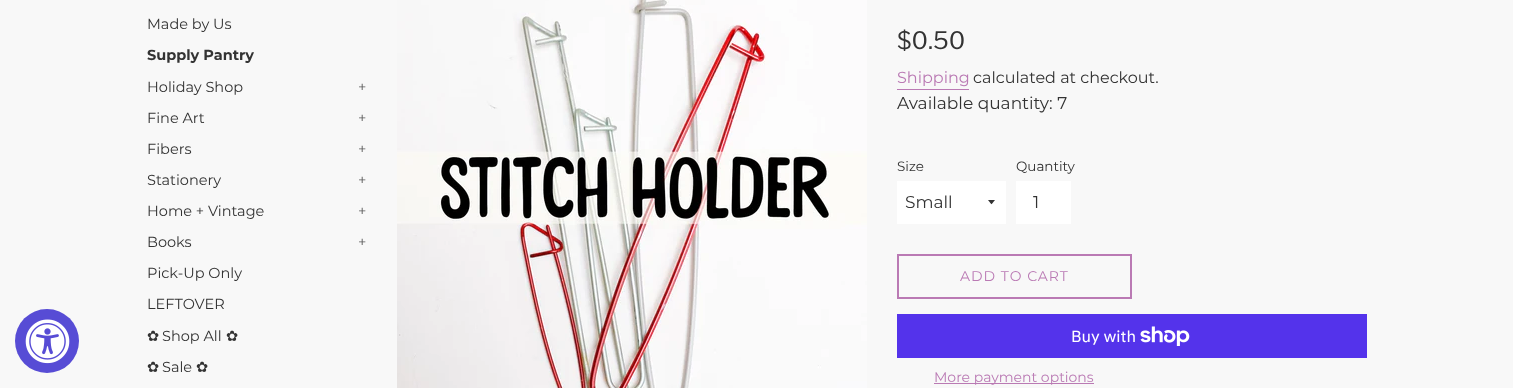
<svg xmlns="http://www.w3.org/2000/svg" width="1513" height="388">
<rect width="100%" height="100%" fill="#f8f8f8"/>
<circle cx="47" cy="341" r="32" fill="#574cd5"/>
<image x="25" y="319" width="45" height="45" href="media/1.png"/>
<text x="147" y="29" style="font-family:Montserrat;font-size:14.5px;fill:#333">Made by Us</text>
<text x="147" y="60" style="font-family:Montserrat;font-size:14.5px;font-weight:bold;fill:#333">Supply Pantry</text>
<text x="147" y="92" style="font-family:Montserrat;font-size:14.5px;fill:#333">Holiday Shop</text>
<text x="358" y="92" style="font-family:Montserrat;font-size:14.5px;fill:#5a5a5a">+</text>
<text x="147" y="123" style="font-family:Montserrat;font-size:14.5px;fill:#333">Fine Art</text>
<text x="358" y="123" style="font-family:Montserrat;font-size:14.5px;fill:#5a5a5a">+</text>
<text x="147" y="154" style="font-family:Montserrat;font-size:14.5px;fill:#333">Fibers</text>
<text x="358" y="154" style="font-family:Montserrat;font-size:14.5px;fill:#5a5a5a">+</text>
<text x="147" y="185" style="font-family:Montserrat;font-size:14.5px;fill:#333">Stationery</text>
<text x="358" y="185" style="font-family:Montserrat;font-size:14.5px;fill:#5a5a5a">+</text>
<text x="147" y="216" style="font-family:Montserrat;font-size:14.5px;fill:#333">Home + Vintage</text>
<text x="358" y="216" style="font-family:Montserrat;font-size:14.5px;fill:#5a5a5a">+</text>
<text x="147" y="247" style="font-family:Montserrat;font-size:14.5px;fill:#333">Books</text>
<text x="358" y="247" style="font-family:Montserrat;font-size:14.5px;fill:#5a5a5a">+</text>
<text x="147" y="278" style="font-family:Montserrat;font-size:14.5px;fill:#333">Pick-Up Only</text>
<text x="147" y="309" style="font-family:Montserrat;font-size:14.5px;fill:#333">LEFTOVER</text>
<text x="147" y="341" style="font-family:DejaVu Sans;font-size:14.5px;fill:#333">✿</text>
<text x="162" y="341" style="font-family:Montserrat;font-size:14.5px;fill:#333">Shop All</text>
<text x="226" y="341" style="font-family:DejaVu Sans;font-size:14.5px;fill:#333">✿</text>
<text x="147" y="372" style="font-family:DejaVu Sans;font-size:14.5px;fill:#333">✿</text>
<text x="162" y="372" style="font-family:Montserrat;font-size:14.5px;fill:#333">Sale</text>
<text x="196" y="372" style="font-family:DejaVu Sans;font-size:14.5px;fill:#333">✿</text>
<image x="397" y="0" width="470" height="388" href="media/2.png"/>
<text x="897" y="49" style="font-family:Libre Franklin;font-size:24px;fill:#333">$0.50</text>
<text x="897" y="83" style="font-family:Montserrat;font-size:16px;fill:#ba7ab4">Shipping</text>
<rect x="897" y="89" width="72" height="1" fill="#ba7ab4"/>
<text x="973" y="83" style="font-family:Montserrat;font-size:16px;fill:#333">calculated at checkout.</text>
<text x="897" y="109" style="font-family:Montserrat;font-size:17px;fill:#333">Available quantity: 7</text>
<text x="897" y="171" style="font-family:Montserrat;font-size:13.5px;fill:#333">Size</text>
<rect x="897" y="181" width="109" height="43" fill="#fff"/>
<path d="M988 200c4.5 5.5 2.5 5.5 7 0z" fill="#333"/>
<text x="905" y="208" style="font-family:Montserrat;font-size:17px;fill:#333">Small</text>
<text x="1016" y="171" style="font-family:Montserrat;font-size:13.5px;fill:#333">Quantity</text>
<rect x="1016" y="181" width="55" height="43" fill="#fff"/>
<text x="1033" y="208" style="font-family:Montserrat;font-size:17px;fill:#333">1</text>
<rect x="898" y="255" width="233" height="43" fill="none" stroke="#ba7ab4" stroke-width="2"/>
<text x="960" y="281" style="font-family:Montserrat;font-size:14px;letter-spacing:1px;fill:#ba7ab4">ADD TO CART</text>
<rect x="897" y="314" width="470" height="44" fill="#5433eb"/>
<text x="1071" y="342" style="font-family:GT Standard;font-size:16px;fill:#fff">Buy with</text>
<image x="1140" y="326" width="50" height="20" href="media/3.png"/>
<rect x="934" y="383" width="160" height="1" fill="#ba7ab4"/>
<text x="934" y="382" style="font-family:Montserrat;font-size:14px;fill:#ba7ab4">More payment options</text>
</svg>
